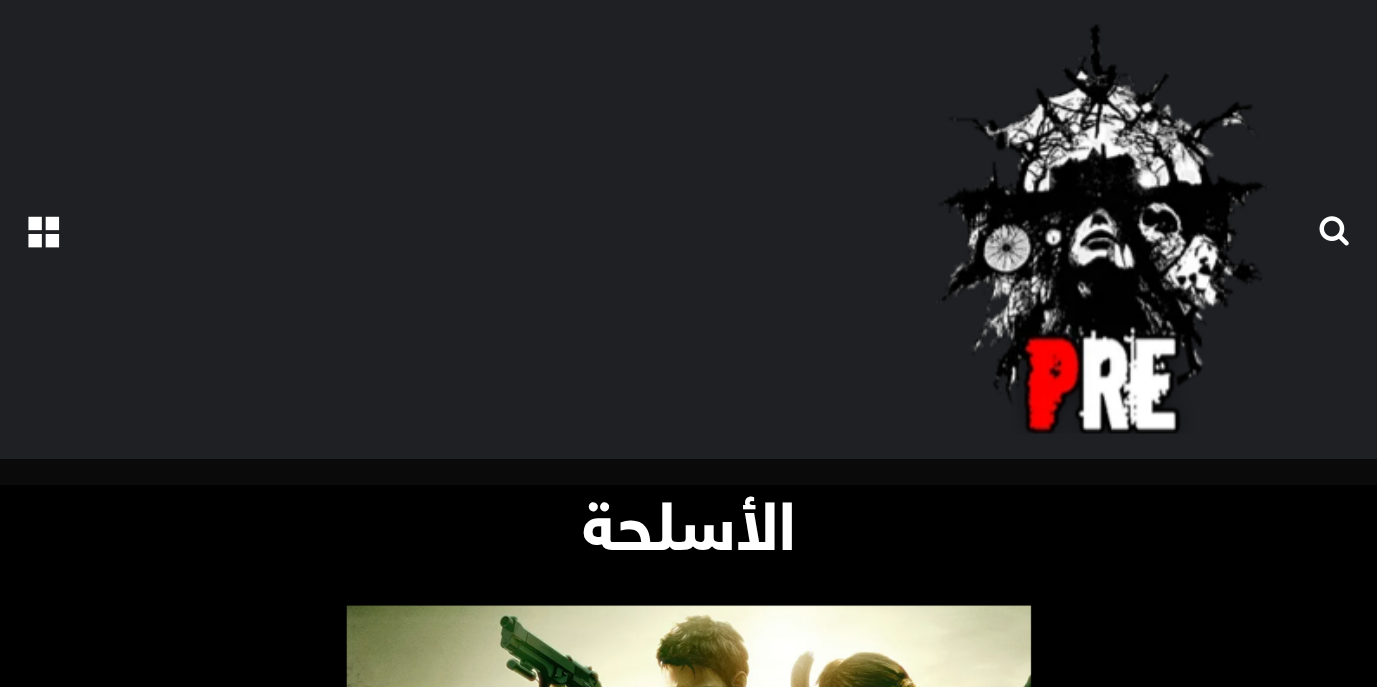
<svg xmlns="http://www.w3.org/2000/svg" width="1377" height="687">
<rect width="100%" height="100%" fill="#0a0a0a"/>
<rect width="1377" height="459" fill="#1f2024"/>
<image x="1319" y="216" width="30" height="30" href="media/1.png"/>
<image x="936" y="24" width="333" height="410" href="media/2.png"/>
<image x="28" y="216" width="32" height="32" href="media/3.png"/>
<rect y="485" width="1377" height="202" fill="#000"/>
<text x="796" y="550" style="font-family:'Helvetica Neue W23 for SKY';font-size:68px;font-weight:bold;direction:rtl;fill:#fff">الأسلحة</text>
<image x="346" y="605" width="686" height="82" href="media/4.png"/>
</svg>
